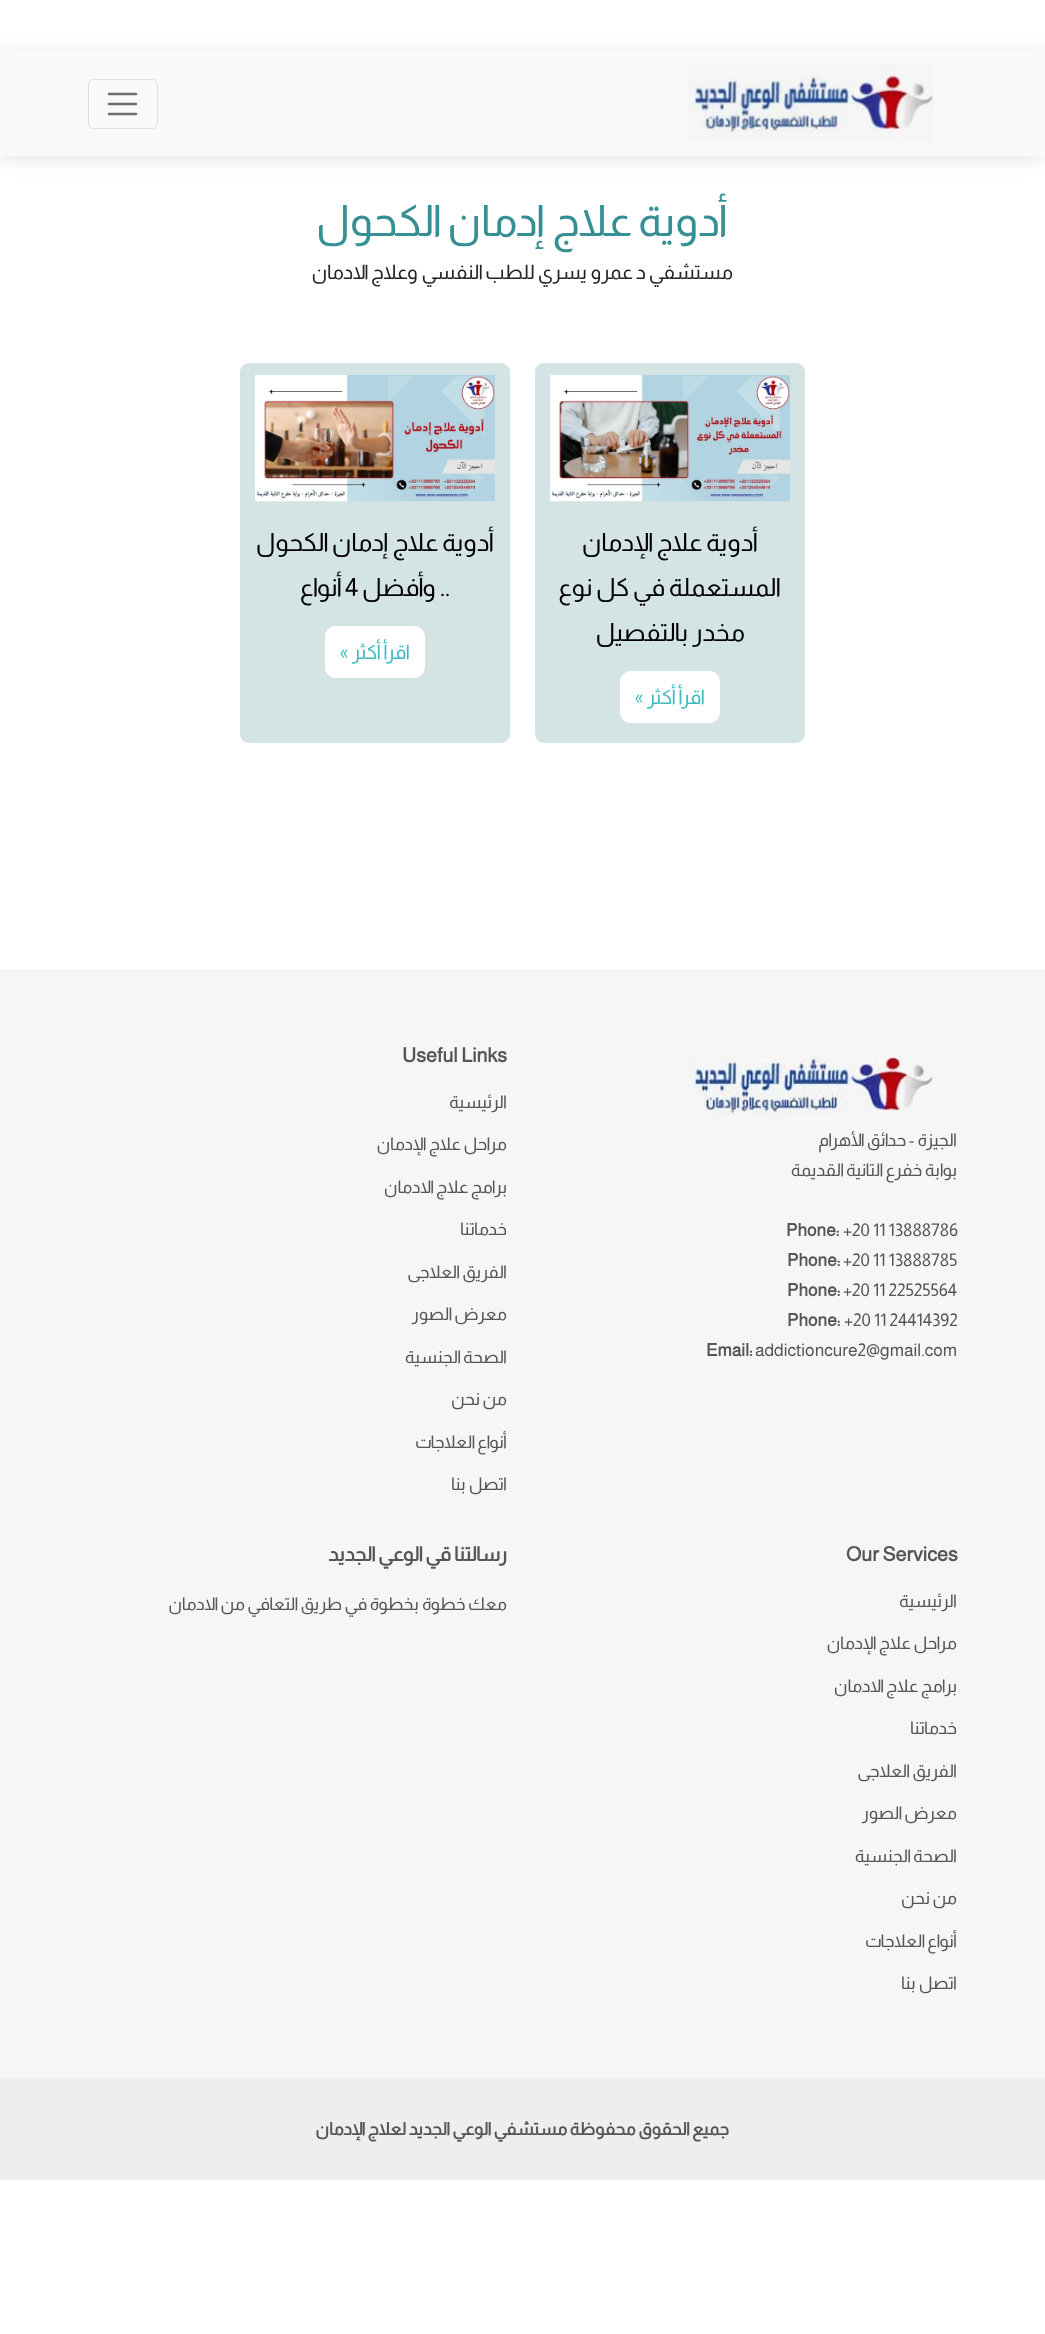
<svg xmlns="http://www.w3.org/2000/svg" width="1045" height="2334">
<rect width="100%" height="100%" fill="#fff"/>
<rect y="53" width="1045" height="106" fill="#0000001a" filter="blur(9.5px)"/>
<rect y="50" width="1045" height="106" fill="#f8f9fa"/>
<image x="688" y="63" width="246" height="79" href="media/1.png"/>
<rect x="88.5" y="79.5" width="69" height="49" rx="4.5" fill="none" stroke="#dfe0e1"/>
<path d="M109 94h27m-27 10h27m-27 10h27" fill="none" stroke="#707071" stroke-width="2.5" stroke-linecap="round"/>
<text x="728" y="236" style="font-family:Almarai;font-size:43.25px;direction:rtl;fill:#368f93">أدوية علاج إدمان الكحول</text>
<text x="733" y="279" style="font-family:Almarai;font-size:20px;direction:rtl;fill:#212529">مستشفي د عمرو يسري للطب النفسي وعلاج الادمان</text>
<rect x="535" y="363" width="270" height="380" rx="9" fill="#d4e3e3"/>
<image x="550" y="375" width="240" height="127" href="media/2.png"/>
<text x="758" y="551" style="font-family:Almarai;font-size:25px;direction:rtl;fill:#000">أدوية علاج الإدمان</text>
<text x="781" y="596" style="font-family:Almarai;font-size:25px;direction:rtl;fill:#000">المستعملة في كل نوع</text>
<text x="745" y="641" style="font-family:Almarai;font-size:25px;direction:rtl;fill:#000">مخدر بالتفصيل</text>
<rect x="620" y="671" width="100" height="52" rx="11" fill="#fff"/>
<text x="705" y="704" style="font-family:Almarai;font-size:20px;direction:rtl;fill:#3fbbc0">اقرأ أكثر »</text>
<rect x="240" y="363" width="270" height="380" rx="9" fill="#d4e3e3"/>
<image x="255" y="375" width="240" height="127" href="media/3.png"/>
<text x="494" y="551" style="font-family:Almarai;font-size:25px;direction:rtl;fill:#000">أدوية علاج إدمان الكحول</text>
<text x="450" y="596" style="font-family:Almarai;font-size:25px;direction:rtl;fill:#000">.. وأفضل</text>
<text x="345" y="596" style="font-family:Almarai;font-size:25px;fill:#000">4</text>
<text x="342" y="596" style="font-family:Almarai;font-size:25px;direction:rtl;fill:#000">أنواع</text>
<rect x="325" y="626" width="100" height="52" rx="11" fill="#fff"/>
<text x="410" y="659" style="font-family:Almarai;font-size:20px;direction:rtl;fill:#3fbbc0">اقرأ أكثر »</text>
<rect y="2079" width="1045" height="101" fill="#eee"/>
<rect y="969" width="1045" height="1110" fill="#f6f6f6"/>
<image x="688" y="1048" width="245" height="70" href="media/4.png"/>
<text x="957" y="1146" style="font-family:Almarai;font-size:17.5px;direction:rtl;fill:#555">الجيزة - حدائق الأهرام</text>
<text x="957" y="1176" style="font-family:Almarai;font-size:17.5px;direction:rtl;fill:#555">بوابة خفرع التانية القديمة</text>
<text x="843" y="1236" style="font-family:Almarai;font-size:17.5px;fill:#555">+20 11 13888786</text>
<text x="786" y="1236" style="font-family:Almarai;font-size:17.5px;font-weight:bold;fill:#555">Phone:</text>
<text x="843" y="1266" style="font-family:Almarai;font-size:17.5px;fill:#555">+20 11 13888785</text>
<text x="787" y="1266" style="font-family:Almarai;font-size:17.5px;font-weight:bold;fill:#555">Phone:</text>
<text x="843" y="1296" style="font-family:Almarai;font-size:17.5px;fill:#555">+20 11 22525564</text>
<text x="787" y="1296" style="font-family:Almarai;font-size:17.5px;font-weight:bold;fill:#555">Phone:</text>
<text x="844" y="1326" style="font-family:Almarai;font-size:17.5px;fill:#555">+20 11 24414392</text>
<text x="787" y="1326" style="font-family:Almarai;font-size:17.5px;font-weight:bold;fill:#555">Phone:</text>
<text x="755" y="1356" style="font-family:Almarai;font-size:17.5px;fill:#555">addictioncure2@gmail.com</text>
<text x="706" y="1356" style="font-family:Almarai;font-size:17.5px;font-weight:bold;fill:#555">Email:</text>
<text x="402" y="1062" style="font-family:Almarai;font-size:20px;font-weight:bold;fill:#555">Useful Links</text>
<text x="507" y="1108" style="font-family:Almarai;font-size:17.5px;direction:rtl;fill:#555">الرئيسية</text>
<text x="507" y="1150" style="font-family:Almarai;font-size:17.5px;direction:rtl;fill:#555">مراحل علاج الإدمان</text>
<text x="507" y="1193" style="font-family:Almarai;font-size:17.5px;direction:rtl;fill:#555">برامج علاج الادمان</text>
<text x="507" y="1235" style="font-family:Almarai;font-size:17.5px;direction:rtl;fill:#555">خدماتنا</text>
<text x="507" y="1278" style="font-family:Almarai;font-size:17.5px;direction:rtl;fill:#555">الفريق العلاجى</text>
<text x="507" y="1320" style="font-family:Almarai;font-size:17.5px;direction:rtl;fill:#555">معرض الصور</text>
<text x="507" y="1363" style="font-family:Almarai;font-size:17.5px;direction:rtl;fill:#555">الصحة الجنسية</text>
<text x="507" y="1405" style="font-family:Almarai;font-size:17.5px;direction:rtl;fill:#555">من نحن</text>
<text x="507" y="1448" style="font-family:Almarai;font-size:17.5px;direction:rtl;fill:#555">أنواع العلاجات</text>
<text x="507" y="1490" style="font-family:Almarai;font-size:17.5px;direction:rtl;fill:#555">اتصل بنا</text>
<text x="846" y="1561" style="font-family:Almarai;font-size:20px;font-weight:bold;fill:#555">Our Services</text>
<text x="957" y="1607" style="font-family:Almarai;font-size:17.5px;direction:rtl;fill:#555">الرئيسية</text>
<text x="957" y="1649" style="font-family:Almarai;font-size:17.5px;direction:rtl;fill:#555">مراحل علاج الإدمان</text>
<text x="957" y="1692" style="font-family:Almarai;font-size:17.5px;direction:rtl;fill:#555">برامج علاج الادمان</text>
<text x="957" y="1734" style="font-family:Almarai;font-size:17.5px;direction:rtl;fill:#555">خدماتنا</text>
<text x="957" y="1777" style="font-family:Almarai;font-size:17.5px;direction:rtl;fill:#555">الفريق العلاجى</text>
<text x="957" y="1819" style="font-family:Almarai;font-size:17.5px;direction:rtl;fill:#555">معرض الصور</text>
<text x="957" y="1862" style="font-family:Almarai;font-size:17.5px;direction:rtl;fill:#555">الصحة الجنسية</text>
<text x="957" y="1904" style="font-family:Almarai;font-size:17.5px;direction:rtl;fill:#555">من نحن</text>
<text x="957" y="1947" style="font-family:Almarai;font-size:17.5px;direction:rtl;fill:#555">أنواع العلاجات</text>
<text x="957" y="1989" style="font-family:Almarai;font-size:17.5px;direction:rtl;fill:#555">اتصل بنا</text>
<text x="507" y="1561" style="font-family:Almarai;font-size:20px;font-weight:bold;direction:rtl;fill:#555">رسالتنا قي الوعي الجديد</text>
<text x="507" y="1610" style="font-family:Almarai;font-size:17.5px;direction:rtl;fill:#555">معك خطوة بخطوة في طريق التعافي من الادمان</text>
<text x="729" y="2135" style="font-family:Almarai;font-size:17.5px;font-weight:bold;direction:rtl;fill:#555">جميع الحقوق محفوظة مستشفي الوعي الجديد لعلاج الإدمان</text>
</svg>
